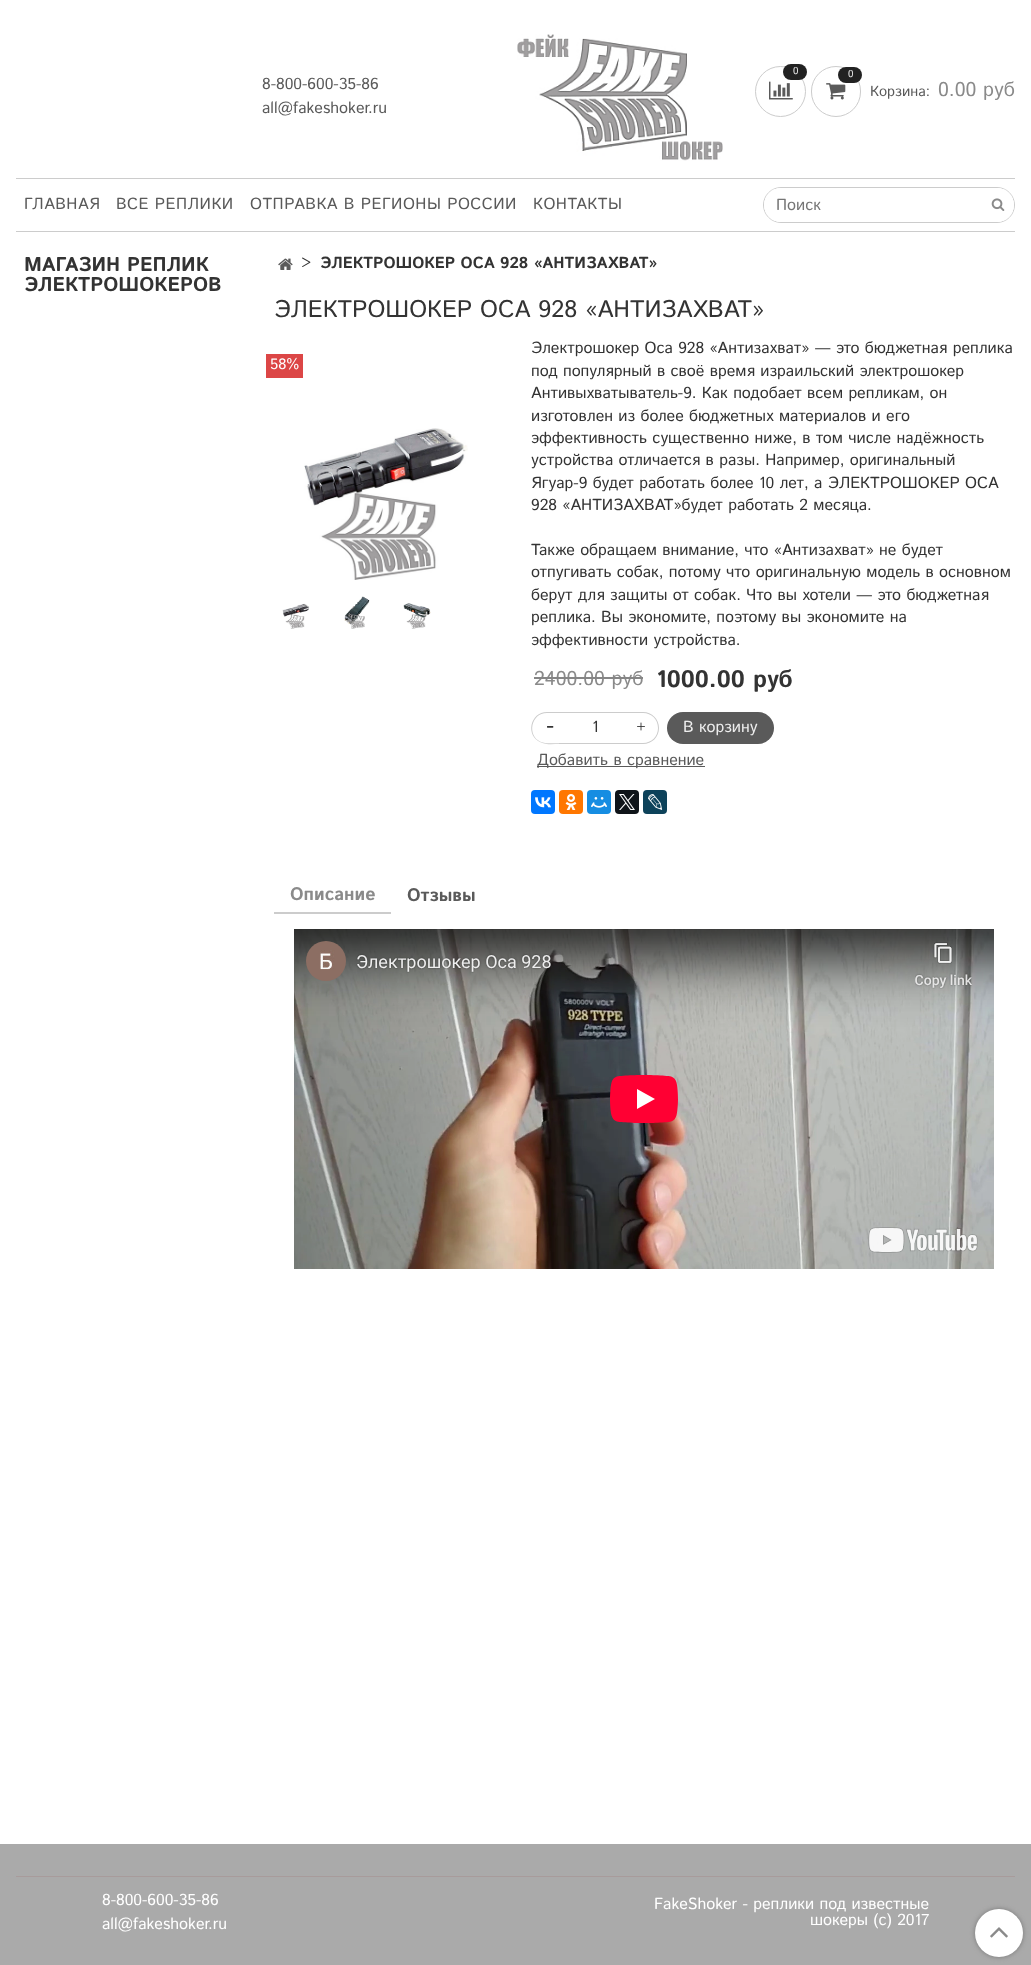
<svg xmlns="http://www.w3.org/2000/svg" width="1031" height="1965">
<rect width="100%" height="100%" fill="#fff"/>
<text x="262" y="89" style="font-family:Istok Web;font-size:16px;fill:#5a5a5a">8-800-600-35-86</text>
<text x="262" y="113" style="font-family:Istok Web;font-size:16px;fill:#5a5a5a">all@fakeshoker.ru</text>
<image x="517" y="34" width="206" height="127" href="media/1.png"/>
<circle cx="780.5" cy="91.5" r="25" fill="none" stroke="#ccc"/>
<rect x="783" y="64" width="24" height="16" rx="8" fill="#222"/>
<text x="793" y="74" style="font-family:Istok Web;font-size:10px;fill:#eee">0</text>
<image x="769" y="81" width="24" height="19" href="media/2.png"/>
<rect x="811.5" y="66.5" width="49" height="50" rx="24.5" fill="none" stroke="#ccc"/>
<rect x="838" y="67" width="24" height="16" rx="8" fill="#222"/>
<text x="848" y="77" style="font-family:Istok Web;font-size:10px;fill:#eee">0</text>
<image x="826" y="83" width="20" height="17" href="media/3.png"/>
<text x="870" y="96" style="font-family:Istok Web;font-size:14.5px;fill:#5a5a5a">Корзина:</text>
<text x="938" y="96" style="font-family:Istok Web;font-size:20px;fill:#8a8a8a">0.00 руб</text>
<rect x="16" y="178" width="999" height="1" fill="#ccc"/>
<rect x="16" y="231" width="999" height="1" fill="#ccc"/>
<text x="24" y="209" style="font-family:Istok Web;font-size:16px;letter-spacing:0.5px;fill:#5a5a5a">ГЛАВНАЯ</text>
<text x="116" y="209" style="font-family:Istok Web;font-size:16px;letter-spacing:0.5px;fill:#5a5a5a">ВСЕ РЕПЛИКИ</text>
<text x="250" y="209" style="font-family:Istok Web;font-size:16px;letter-spacing:0.5px;fill:#5a5a5a">ОТПРАВКА В РЕГИОНЫ РОССИИ</text>
<text x="533" y="209" style="font-family:Istok Web;font-size:16px;letter-spacing:0.5px;fill:#5a5a5a">КОНТАКТЫ</text>
<rect x="763.5" y="187.5" width="251" height="35" rx="17.5" fill="none" stroke="#ccc"/>
<path d="M781 188h201v34h-201c-9.5 0-17-7.5-17-17c0-9.5 7.5-17 17-17z" fill="#fff"/>
<text x="776" y="210" style="font-family:Istok Web;font-size:16px;fill:#757575">Поиск</text>
<path d="M982 188h15c9.5 0 17 7.5 17 17c0 9.5-7.5 17-17 17h-15z" fill="#fff"/>
<image x="991" y="198" width="14" height="13" href="media/4.png"/>
<text x="24" y="271" style="font-family:Istok Web;font-size:20px;font-weight:bold;fill:#333">МАГАЗИН РЕПЛИК</text>
<text x="24" y="291" style="font-family:Istok Web;font-size:20px;font-weight:bold;fill:#333">ЭЛЕКТРОШОКЕРОВ</text>
<image x="278" y="258" width="15" height="12" href="media/5.png"/>
<text x="301" y="268" style="font-family:Istok Web;font-size:16px;fill:#333">&gt;</text>
<text x="320" y="268" style="font-family:Istok Web;font-size:16px;font-weight:bold;fill:#333">ЭЛЕКТРОШОКЕР ОСА 928 «АНТИЗАХВАТ»</text>
<text x="274" y="317" style="font-family:Istok Web;font-size:24px;fill:#333">ЭЛЕКТРОШОКЕР ОСА 928 «АНТИЗАХВАТ»</text>
<rect x="266" y="354" width="37" height="24" fill="#dc4646"/>
<text x="270" y="369" style="font-family:Istok Web;font-size:15px;fill:#fff">58%</text>
<image x="304" y="428" width="164" height="152" href="media/6.png"/>
<image x="282" y="603" width="28" height="26" href="media/7.png"/>
<image x="344" y="596" width="26" height="33" href="media/8.png"/>
<image x="403" y="603" width="28" height="26" href="media/9.png"/>
<text x="531" y="353" style="font-family:Istok Web;font-size:16px;fill:#333">Электрошокер Оса 928 «Антизахват» — это бюджетная реплика</text>
<text x="531" y="376" style="font-family:Istok Web;font-size:16px;fill:#333">под популярный в своё время израильский электрошокер</text>
<text x="531" y="398" style="font-family:Istok Web;font-size:16px;fill:#333">Антивыхватыватель-9. Как подобает всем репликам, он</text>
<text x="531" y="421" style="font-family:Istok Web;font-size:16px;fill:#333">изготовлен из более бюджетных материалов и его</text>
<text x="531" y="443" style="font-family:Istok Web;font-size:16px;fill:#333">эффективность существенно ниже, в том числе надёжность</text>
<text x="531" y="465" style="font-family:Istok Web;font-size:16px;fill:#333">устройства отличается в разы. Например, оригинальный</text>
<text x="531" y="488" style="font-family:Istok Web;font-size:16px;fill:#333">Ягуар-9 будет работать более 10 лет, а ЭЛЕКТРОШОКЕР ОСА</text>
<text x="531" y="510" style="font-family:Istok Web;font-size:16px;fill:#333">928 «АНТИЗАХВАТ»будет работать 2 месяца.</text>
<text x="531" y="555" style="font-family:Istok Web;font-size:16px;fill:#333">Также обращаем внимание, что «Антизахват» не будет</text>
<text x="531" y="577" style="font-family:Istok Web;font-size:16px;fill:#333">отпугивать собак, потому что оригинальную модель в основном</text>
<text x="531" y="600" style="font-family:Istok Web;font-size:16px;fill:#333">берут для защиты от собак. Что вы хотели — это бюджетная</text>
<text x="531" y="622" style="font-family:Istok Web;font-size:16px;fill:#333">реплика. Вы экономите, поэтому вы экономите на</text>
<text x="531" y="645" style="font-family:Istok Web;font-size:16px;fill:#333">эффективности устройства.</text>
<text x="534" y="685" style="font-family:Istok Web;font-size:20px;fill:#8a8a8a">2400.00 руб</text>
<rect x="534" y="677" width="109" height="2" fill="#858585"/>
<text x="656" y="687" style="font-family:Istok Web;font-size:24px;font-weight:bold;fill:#333">1000.00 руб</text>
<path d="M547 712h12v32c-5.5 0-13 1-18-1.5c-16-6.5-11-30.5 6-30.5zm0 1h12v30c-5.5 0-13 1-18-1c-14.5-6.5-10-29 6-29z" fill="#ccc" fill-rule="evenodd"/>
<image x="547" y="726" width="7" height="2" href="media/10.png"/>
<rect x="559" y="712" width="72" height="1" fill="#ccc"/>
<rect x="559" y="743" width="72" height="1" fill="#ccc"/>
<text x="592" y="732" style="font-family:Istok Web;font-size:16px;fill:#333">1</text>
<path d="M631 712h12c9 0 16 7 16 16c0 9-7 16-16 16h-12zm0 1h12c8.5 0 15 6.5 15 15c0 8.5-6.5 15-15 15h-12z" fill="#ccc" fill-rule="evenodd"/>
<image x="637" y="722" width="8" height="9" href="media/11.png"/>
<rect x="667" y="712" width="107" height="32" rx="16" fill="#5a5a5a"/>
<text x="683" y="732" style="font-family:Istok Web;font-size:16px;fill:#eee">В корзину</text>
<rect x="537" y="766" width="168" height="1" fill="#5a5a5a"/>
<text x="537" y="765" style="font-family:Istok Web;font-size:16px;fill:#5a5a5a">Добавить в сравнение</text>
<rect x="531" y="790" width="24" height="24" rx="4" fill="#07f"/>
<image x="535" y="797" width="16" height="11" href="media/12.png"/>
<rect x="559" y="790" width="24" height="24" rx="4" fill="#f70"/>
<image x="565" y="794" width="12" height="16" href="media/13.png"/>
<rect x="587" y="790" width="24" height="24" rx="4" fill="#168de2"/>
<image x="591" y="797" width="16" height="11" href="media/14.png"/>
<rect x="615" y="790" width="24" height="24" rx="4" fill="#0f1419"/>
<image x="619" y="794" width="16" height="16" href="media/15.png"/>
<rect x="643" y="790" width="24" height="24" rx="4" fill="#0d425a"/>
<image x="648" y="794" width="15" height="16" href="media/16.png"/>
<rect x="274" y="912" width="117" height="2" fill="#ccc"/>
<text x="290" y="900" style="font-family:Istok Web;font-size:18px;font-weight:bold;fill:#8a8a8a">Описание</text>
<text x="407" y="901" style="font-family:Istok Web;font-size:18px;font-weight:bold;fill:#5a5a5a">Отзывы</text>
<image x="294" y="929" width="700" height="340" href="media/17.png"/>
<rect y="1844" width="1031" height="121" fill="#aaa"/>
<rect x="16" y="1876" width="999" height="1" fill="#a89b9b"/>
<text x="102" y="1905" style="font-family:Istok Web;font-size:16px;fill:#fff">8-800-600-35-86</text>
<text x="102" y="1929" style="font-family:Istok Web;font-size:16px;fill:#fff">all@fakeshoker.ru</text>
<text x="654" y="1909" style="font-family:Istok Web;font-size:16px;fill:#fff">FakeShoker - реплики под известные</text>
<text x="810" y="1925" style="font-family:Istok Web;font-size:16px;fill:#fff">шокеры (с) 2017</text>
<rect x="975" y="1909" width="48" height="48" rx="24" fill="#777" filter="blur(2.5px)"/>
<circle cx="999" cy="1933" r="24" fill="#fff"/>
<image x="990" y="1927" width="18" height="11" href="media/18.png"/>
</svg>
